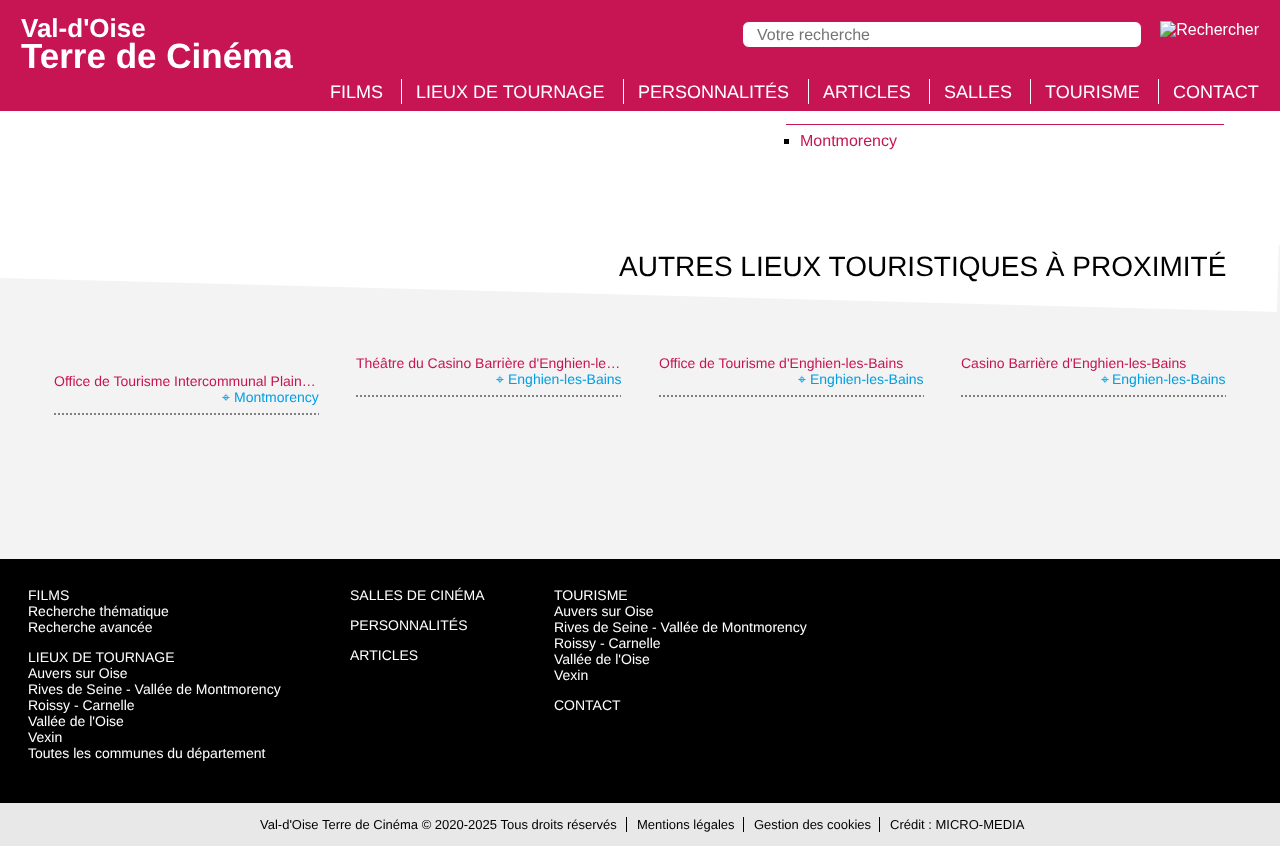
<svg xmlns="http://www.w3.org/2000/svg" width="1280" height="846">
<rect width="100%" height="100%" fill="#fff"/>
<rect width="1280" height="111" fill="#c71553"/>
<text x="21" y="37" style="font-family:Liberation Sans;font-size:26px;font-weight:bold;fill:#fff">Val-d'Oise</text>
<text x="21" y="68" style="font-family:Liberation Sans;font-size:35px;font-weight:bold;fill:#fff">Terre de Cinéma</text>
<rect x="742.5" y="21.5" width="399" height="26" rx="6.5" fill="#fff" stroke="#c71553"/>
<text x="757" y="40" style="font-family:Liberation Sans;font-size:16px;fill:#757575">Votre recherche</text>
<image x="1160" y="21" width="99" height="16" href="media/1.png"/>
<text x="330" y="98" style="font-family:Liberation Sans;font-size:18px;fill:#fff">FILMS</text>
<rect x="401" y="79" width="1" height="25" fill="#fff"/>
<text x="416" y="98" style="font-family:Liberation Sans;font-size:18px;fill:#fff">LIEUX DE TOURNAGE</text>
<rect x="623" y="79" width="1" height="25" fill="#fff"/>
<text x="638" y="98" style="font-family:Liberation Sans;font-size:18px;fill:#fff">PERSONNALITÉS</text>
<rect x="808" y="79" width="1" height="25" fill="#fff"/>
<text x="823" y="98" style="font-family:Liberation Sans;font-size:18px;fill:#fff">ARTICLES</text>
<rect x="929" y="79" width="1" height="25" fill="#fff"/>
<text x="944" y="98" style="font-family:Liberation Sans;font-size:18px;fill:#fff">SALLES</text>
<rect x="1030" y="79" width="1" height="25" fill="#fff"/>
<text x="1045" y="98" style="font-family:Liberation Sans;font-size:18px;fill:#fff">TOURISME</text>
<rect x="1158" y="79" width="1" height="25" fill="#fff"/>
<text x="1173" y="98" style="font-family:Liberation Sans;font-size:18px;fill:#fff">CONTACT</text>
<rect x="786" y="124" width="438" height="1" fill="#c71553"/>
<rect x="784" y="139" width="5" height="5" fill="#000"/>
<text x="800" y="146" style="font-family:Liberation Sans;font-size:16px;fill:#c71553">Montmorency</text>
<rect y="245" width="1280" height="314" fill="#f3f3f4"/>
<path d="M2 163l1278 34l-3 115l-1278-34z" fill="#fff"/>
<text x="619" y="276" style="font-family:Liberation Sans;font-size:28px;fill:#000">AUTRES LIEUX TOURISTIQUES À PROXIMITÉ</text>
<text x="356" y="368" style="font-family:Liberation Sans;font-size:14px;fill:#c71553">Théâtre du Casino Barrière d'Enghien-le…</text>
<path d="M356 396h265" fill="none" stroke="#808080" stroke-width="2" stroke-dasharray="2 2"/>
<text x="496" y="384" style="font-family:FreeSerif;font-size:14px;fill:#009fe3">⌖</text>
<text x="508" y="384" style="font-family:Liberation Sans;font-size:14px;fill:#009fe3">Enghien-les-Bains</text>
<text x="659" y="368" style="font-family:Liberation Sans;font-size:14px;fill:#c71553">Office de Tourisme d'Enghien-les-Bains</text>
<path d="M659 396h265" fill="none" stroke="#808080" stroke-width="2" stroke-dasharray="2 2"/>
<text x="798" y="384" style="font-family:FreeSerif;font-size:14px;fill:#009fe3">⌖</text>
<text x="810" y="384" style="font-family:Liberation Sans;font-size:14px;fill:#009fe3">Enghien-les-Bains</text>
<text x="961" y="368" style="font-family:Liberation Sans;font-size:14px;fill:#c71553">Casino Barrière d'Enghien-les-Bains</text>
<path d="M961 396h265" fill="none" stroke="#808080" stroke-width="2" stroke-dasharray="2 2"/>
<text x="1101" y="384" style="font-family:FreeSerif;font-size:14px;fill:#009fe3">⌖</text>
<text x="1112" y="384" style="font-family:Liberation Sans;font-size:14px;fill:#009fe3">Enghien-les-Bains</text>
<text x="54" y="386" style="font-family:Liberation Sans;font-size:14px;fill:#c71553">Office de Tourisme Intercommunal Plain…</text>
<path d="M54 414h265" fill="none" stroke="#808080" stroke-width="2" stroke-dasharray="2 2"/>
<text x="222" y="402" style="font-family:FreeSerif;font-size:14px;fill:#009fe3">⌖</text>
<text x="234" y="402" style="font-family:Liberation Sans;font-size:14px;fill:#009fe3">Montmorency</text>
<rect y="559" width="1280" height="244" fill="#000"/>
<text x="28" y="600" style="font-family:Liberation Sans;font-size:14px;fill:#fff">FILMS</text>
<text x="28" y="616" style="font-family:Liberation Sans;font-size:14px;fill:#fff">Recherche thématique</text>
<text x="28" y="632" style="font-family:Liberation Sans;font-size:14px;fill:#fff">Recherche avancée</text>
<text x="28" y="662" style="font-family:Liberation Sans;font-size:14px;fill:#fff">LIEUX DE TOURNAGE</text>
<text x="28" y="678" style="font-family:Liberation Sans;font-size:14px;fill:#fff">Auvers sur Oise</text>
<text x="28" y="694" style="font-family:Liberation Sans;font-size:14px;fill:#fff">Rives de Seine - Vallée de Montmorency</text>
<text x="28" y="710" style="font-family:Liberation Sans;font-size:14px;fill:#fff">Roissy - Carnelle</text>
<text x="28" y="726" style="font-family:Liberation Sans;font-size:14px;fill:#fff">Vallée de l'Oise</text>
<text x="28" y="742" style="font-family:Liberation Sans;font-size:14px;fill:#fff">Vexin</text>
<text x="28" y="758" style="font-family:Liberation Sans;font-size:14px;fill:#fff">Toutes les communes du département</text>
<text x="350" y="600" style="font-family:Liberation Sans;font-size:14px;fill:#fff">SALLES DE CINÉMA</text>
<text x="350" y="630" style="font-family:Liberation Sans;font-size:14px;fill:#fff">PERSONNALITÉS</text>
<text x="350" y="660" style="font-family:Liberation Sans;font-size:14px;fill:#fff">ARTICLES</text>
<text x="554" y="600" style="font-family:Liberation Sans;font-size:14px;fill:#fff">TOURISME</text>
<text x="554" y="616" style="font-family:Liberation Sans;font-size:14px;fill:#fff">Auvers sur Oise</text>
<text x="554" y="632" style="font-family:Liberation Sans;font-size:14px;fill:#fff">Rives de Seine - Vallée de Montmorency</text>
<text x="554" y="648" style="font-family:Liberation Sans;font-size:14px;fill:#fff">Roissy - Carnelle</text>
<text x="554" y="664" style="font-family:Liberation Sans;font-size:14px;fill:#fff">Vallée de l'Oise</text>
<text x="554" y="680" style="font-family:Liberation Sans;font-size:14px;fill:#fff">Vexin</text>
<text x="554" y="710" style="font-family:Liberation Sans;font-size:14px;fill:#fff">CONTACT</text>
<rect y="803" width="1280" height="43" fill="#e8e8e9"/>
<text x="260" y="829" style="font-family:Liberation Sans;font-size:13px;fill:#000">Val-d'Oise Terre de Cinéma © 2020-2025 Tous droits réservés</text>
<text x="637" y="829" style="font-family:Liberation Sans;font-size:13px;fill:#000">Mentions légales</text>
<rect x="626" y="817" width="1" height="15" fill="#000"/>
<text x="754" y="829" style="font-family:Liberation Sans;font-size:13px;fill:#000">Gestion des cookies</text>
<rect x="743" y="817" width="1" height="15" fill="#000"/>
<text x="890" y="829" style="font-family:Liberation Sans;font-size:13px;fill:#000">Crédit : MICRO-MEDIA</text>
<rect x="879" y="817" width="1" height="15" fill="#000"/>
</svg>
